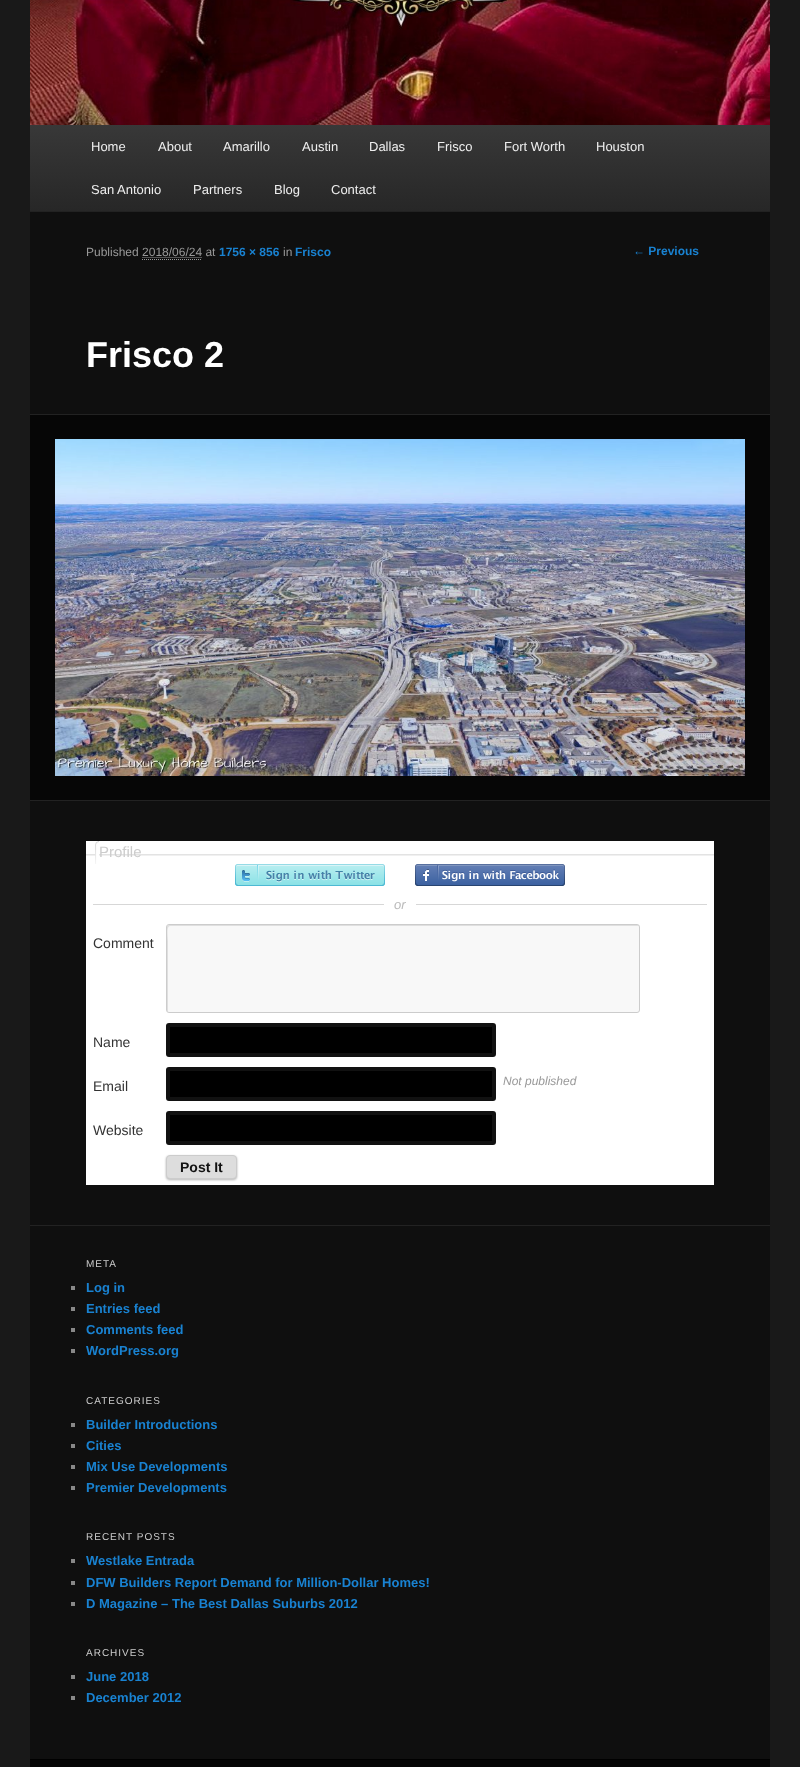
<svg xmlns="http://www.w3.org/2000/svg" width="800" height="1767">
<defs>
<linearGradient id="g1" gradientUnits="userSpaceOnUse" x1="400" y1="125" x2="400" y2="211"><stop offset="0" stop-color="#383838"/><stop offset="1" stop-color="#272727"/></linearGradient>
</defs>
<rect width="100%" height="100%" fill="#191919"/>
<rect x="30" y="212" width="740" height="1547" fill="#0f0f0f"/>
<image x="30" y="0" width="740" height="125" href="media/1.png"/>
<rect x="30" y="125" width="740" height="86" fill="url(#g1)"/>
<rect x="30" y="211" width="740" height="1" fill="#222"/>
<text x="91" y="151" style="font-family:Liberation Sans;font-size:13px;fill:#eee">Home</text>
<text x="158" y="151" style="font-family:Liberation Sans;font-size:13px;fill:#eee">About</text>
<text x="223" y="151" style="font-family:Liberation Sans;font-size:13px;fill:#eee">Amarillo</text>
<text x="302" y="151" style="font-family:Liberation Sans;font-size:13px;fill:#eee">Austin</text>
<text x="369" y="151" style="font-family:Liberation Sans;font-size:13px;fill:#eee">Dallas</text>
<text x="437" y="151" style="font-family:Liberation Sans;font-size:13px;fill:#eee">Frisco</text>
<text x="504" y="151" style="font-family:Liberation Sans;font-size:13px;fill:#eee">Fort Worth</text>
<text x="596" y="151" style="font-family:Liberation Sans;font-size:13px;fill:#eee">Houston</text>
<text x="91" y="194" style="font-family:Liberation Sans;font-size:13px;fill:#eee">San Antonio</text>
<text x="193" y="194" style="font-family:Liberation Sans;font-size:13px;fill:#eee">Partners</text>
<text x="274" y="194" style="font-family:Liberation Sans;font-size:13px;fill:#eee">Blog</text>
<text x="331" y="194" style="font-family:Liberation Sans;font-size:13px;fill:#eee">Contact</text>
<text x="86" y="256" style="font-family:Liberation Sans;font-size:12px;fill:#999">Published 2018/06/24 at</text>
<text x="219" y="256" style="font-family:Liberation Sans;font-size:12px;font-weight:bold;fill:#1982d1">1756 × 856</text>
<text x="283" y="256" style="font-family:Liberation Sans;font-size:12px;fill:#999">in</text>
<text x="295" y="256" style="font-family:Liberation Sans;font-size:12px;font-weight:bold;fill:#1982d1">Frisco</text>
<path d="M142 259.5h60m-59.5-2h60" fill="none" stroke="#999" stroke-dasharray="1 1"/>
<text x="86" y="367" style="font-family:Liberation Sans;font-size:36px;font-weight:bold;fill:#fff">Frisco 2</text>
<rect x="30" y="415" width="740" height="385" fill="#060606"/>
<rect x="30" y="414" width="740" height="1" fill="#222"/>
<rect x="30" y="800" width="740" height="1" fill="#222"/>
<image x="55" y="439" width="690" height="337" href="media/2.png"/>
<text x="633" y="255" style="font-family:Liberation Sans;font-size:12px;font-weight:bold;fill:#1982d1">← Previous</text>
<rect x="86" y="841" width="628" height="344" fill="#fff"/>
<image x="86" y="841" width="628" height="23" href="media/3.png"/>
<text x="99" y="857" style="font-family:Liberation Sans;font-size:15px;fill:#ccc">Profile</text>
<image x="235" y="864" width="150" height="22" href="media/4.png"/>
<image x="415" y="864" width="150" height="22" href="media/5.png"/>
<rect x="93" y="904" width="614" height="1" fill="#d7d7d7"/>
<rect x="384" y="904" width="32" height="1" fill="#fff"/>
<text x="394" y="909" style="font-family:Liberation Sans;font-size:13px;font-style:italic;fill:#bbb">or</text>
<text x="93" y="948" style="font-family:Liberation Sans;font-size:14px;fill:#333">Comment</text>
<rect x="167" y="925" width="472" height="87" rx="2" fill="#f8f8f8"/>
<path d="M170 926h469c0 0-1-1-2-1h-468c-1 0-2 1-2 2v83c0 1 1 2 1 2v-70c0-4-2-16 2-16z" fill="#dfdfdf"/>
<rect x="166.5" y="924.5" width="473" height="88" rx="2.5" fill="none" stroke="#ccc"/>
<text x="93" y="1047" style="font-family:Liberation Sans;font-size:14px;fill:#333">Name</text>
<rect x="168" y="1025" width="326" height="30" rx="1" fill="#000" stroke="#111" stroke-width="4"/>
<text x="93" y="1091" style="font-family:Liberation Sans;font-size:14px;fill:#333">Email</text>
<rect x="168" y="1069" width="326" height="30" rx="1" fill="#000" stroke="#111" stroke-width="4"/>
<text x="503" y="1085" style="font-family:Liberation Sans;font-size:12px;font-style:italic;fill:#999">Not published</text>
<text x="93" y="1135" style="font-family:Liberation Sans;font-size:14px;fill:#333">Website</text>
<rect x="168" y="1113" width="326" height="30" rx="1" fill="#000" stroke="#111" stroke-width="4"/>
<rect x="166" y="1156" width="71" height="24" rx="4" fill="#0000004d" filter="blur(1px)"/>
<rect x="166.5" y="1155.5" width="70" height="23" rx="3.5" fill="#ddd" stroke="#ccc"/>
<text x="180" y="1172" style="font-family:Liberation Sans;font-size:14px;font-weight:bold;fill:#111">Post It</text>
<rect x="30" y="1225" width="740" height="1" fill="#222"/>
<text x="86" y="1267" style="font-family:Liberation Sans;font-size:10px;letter-spacing:1px;fill:#ccc">META</text>
<rect x="71" y="1286" width="4" height="4" fill="#888"/>
<text x="86" y="1292" style="font-family:Liberation Sans;font-size:13px;font-weight:bold;fill:#1982d1">Log in</text>
<rect x="71" y="1307" width="4" height="4" fill="#888"/>
<text x="86" y="1313" style="font-family:Liberation Sans;font-size:13px;font-weight:bold;fill:#1982d1">Entries feed</text>
<rect x="71" y="1328" width="4" height="4" fill="#888"/>
<text x="86" y="1334" style="font-family:Liberation Sans;font-size:13px;font-weight:bold;fill:#1982d1">Comments feed</text>
<rect x="71" y="1349" width="4" height="4" fill="#888"/>
<text x="86" y="1355" style="font-family:Liberation Sans;font-size:13px;font-weight:bold;fill:#1982d1">WordPress.org</text>
<text x="86" y="1404" style="font-family:Liberation Sans;font-size:10px;letter-spacing:1px;fill:#ccc">CATEGORIES</text>
<rect x="71" y="1423" width="4" height="4" fill="#888"/>
<text x="86" y="1429" style="font-family:Liberation Sans;font-size:13px;font-weight:bold;fill:#1982d1">Builder Introductions</text>
<rect x="71" y="1444" width="4" height="4" fill="#888"/>
<text x="86" y="1450" style="font-family:Liberation Sans;font-size:13px;font-weight:bold;fill:#1982d1">Cities</text>
<rect x="71" y="1465" width="4" height="4" fill="#888"/>
<text x="86" y="1471" style="font-family:Liberation Sans;font-size:13px;font-weight:bold;fill:#1982d1">Mix Use Developments</text>
<rect x="71" y="1486" width="4" height="4" fill="#888"/>
<text x="86" y="1492" style="font-family:Liberation Sans;font-size:13px;font-weight:bold;fill:#1982d1">Premier Developments</text>
<text x="86" y="1540" style="font-family:Liberation Sans;font-size:10px;letter-spacing:1px;fill:#ccc">RECENT POSTS</text>
<rect x="71" y="1559" width="4" height="4" fill="#888"/>
<text x="86" y="1565" style="font-family:Liberation Sans;font-size:13px;font-weight:bold;fill:#1982d1">Westlake Entrada</text>
<rect x="71" y="1581" width="4" height="4" fill="#888"/>
<text x="86" y="1587" style="font-family:Liberation Sans;font-size:13px;font-weight:bold;fill:#1982d1">DFW Builders Report Demand for Million-Dollar Homes!</text>
<rect x="71" y="1602" width="4" height="4" fill="#888"/>
<text x="86" y="1608" style="font-family:Liberation Sans;font-size:13px;font-weight:bold;fill:#1982d1">D Magazine – The Best Dallas Suburbs 2012</text>
<text x="86" y="1656" style="font-family:Liberation Sans;font-size:10px;letter-spacing:1px;fill:#ccc">ARCHIVES</text>
<rect x="71" y="1675" width="4" height="4" fill="#888"/>
<text x="86" y="1681" style="font-family:Liberation Sans;font-size:13px;font-weight:bold;fill:#1982d1">June 2018</text>
<rect x="71" y="1696" width="4" height="4" fill="#888"/>
<text x="86" y="1702" style="font-family:Liberation Sans;font-size:13px;font-weight:bold;fill:#1982d1">December 2012</text>
<rect x="30" y="1760" width="740" height="7" fill="#060606"/>
<rect x="30" y="1759" width="740" height="1" fill="#000"/>
</svg>
